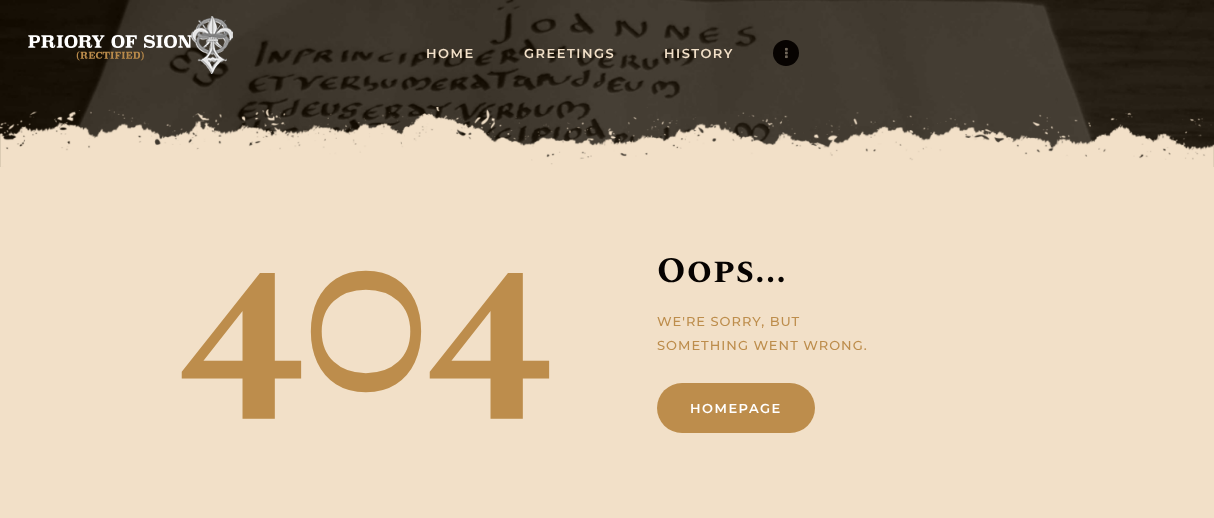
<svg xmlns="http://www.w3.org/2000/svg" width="1214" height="518">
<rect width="100%" height="100%" fill="#f2e0c8"/>
<image x="0" y="0" width="1214" height="167" href="media/1.png"/>
<image x="28" y="16" width="205" height="58" href="media/2.png"/>
<text x="426" y="58" style="font-family:Montserrat;font-size:13px;font-weight:600;letter-spacing:1.5px;fill:#f2e0c8">HOME</text>
<text x="524" y="58" style="font-family:Montserrat;font-size:13px;font-weight:600;letter-spacing:1.5px;fill:#f2e0c8">GREETINGS</text>
<text x="664" y="58" style="font-family:Montserrat;font-size:13px;font-weight:600;letter-spacing:1.5px;fill:#f2e0c8">HISTORY</text>
<circle cx="786" cy="53" r="13" fill="#070301"/>
<image x="785" y="47" width="3" height="12" href="media/3.png"/>
<image x="0" y="107" width="1214" height="60" href="media/4.png"/>
<text x="180" y="390" style="font-family:Spectral SC;font-size:221px;font-weight:bold;fill:#bd8d4c">404</text>
<text x="657" y="282" style="font-family:Spectral SC;font-size:36px;font-weight:bold;letter-spacing:1px;fill:#070301">Oops...</text>
<text x="657" y="326" style="font-family:Montserrat;font-size:13px;font-weight:500;letter-spacing:1px;fill:#bd8d4c">WE'RE SORRY, BUT</text>
<text x="657" y="350" style="font-family:Montserrat;font-size:13px;font-weight:500;letter-spacing:1px;fill:#bd8d4c">SOMETHING WENT WRONG.</text>
<rect x="657" y="383" width="158" height="50" rx="25" fill="#bd8d4c"/>
<text x="690" y="413" style="font-family:Montserrat;font-size:13px;font-weight:600;letter-spacing:1.5px;fill:#fff">HOMEPAGE</text>
</svg>
